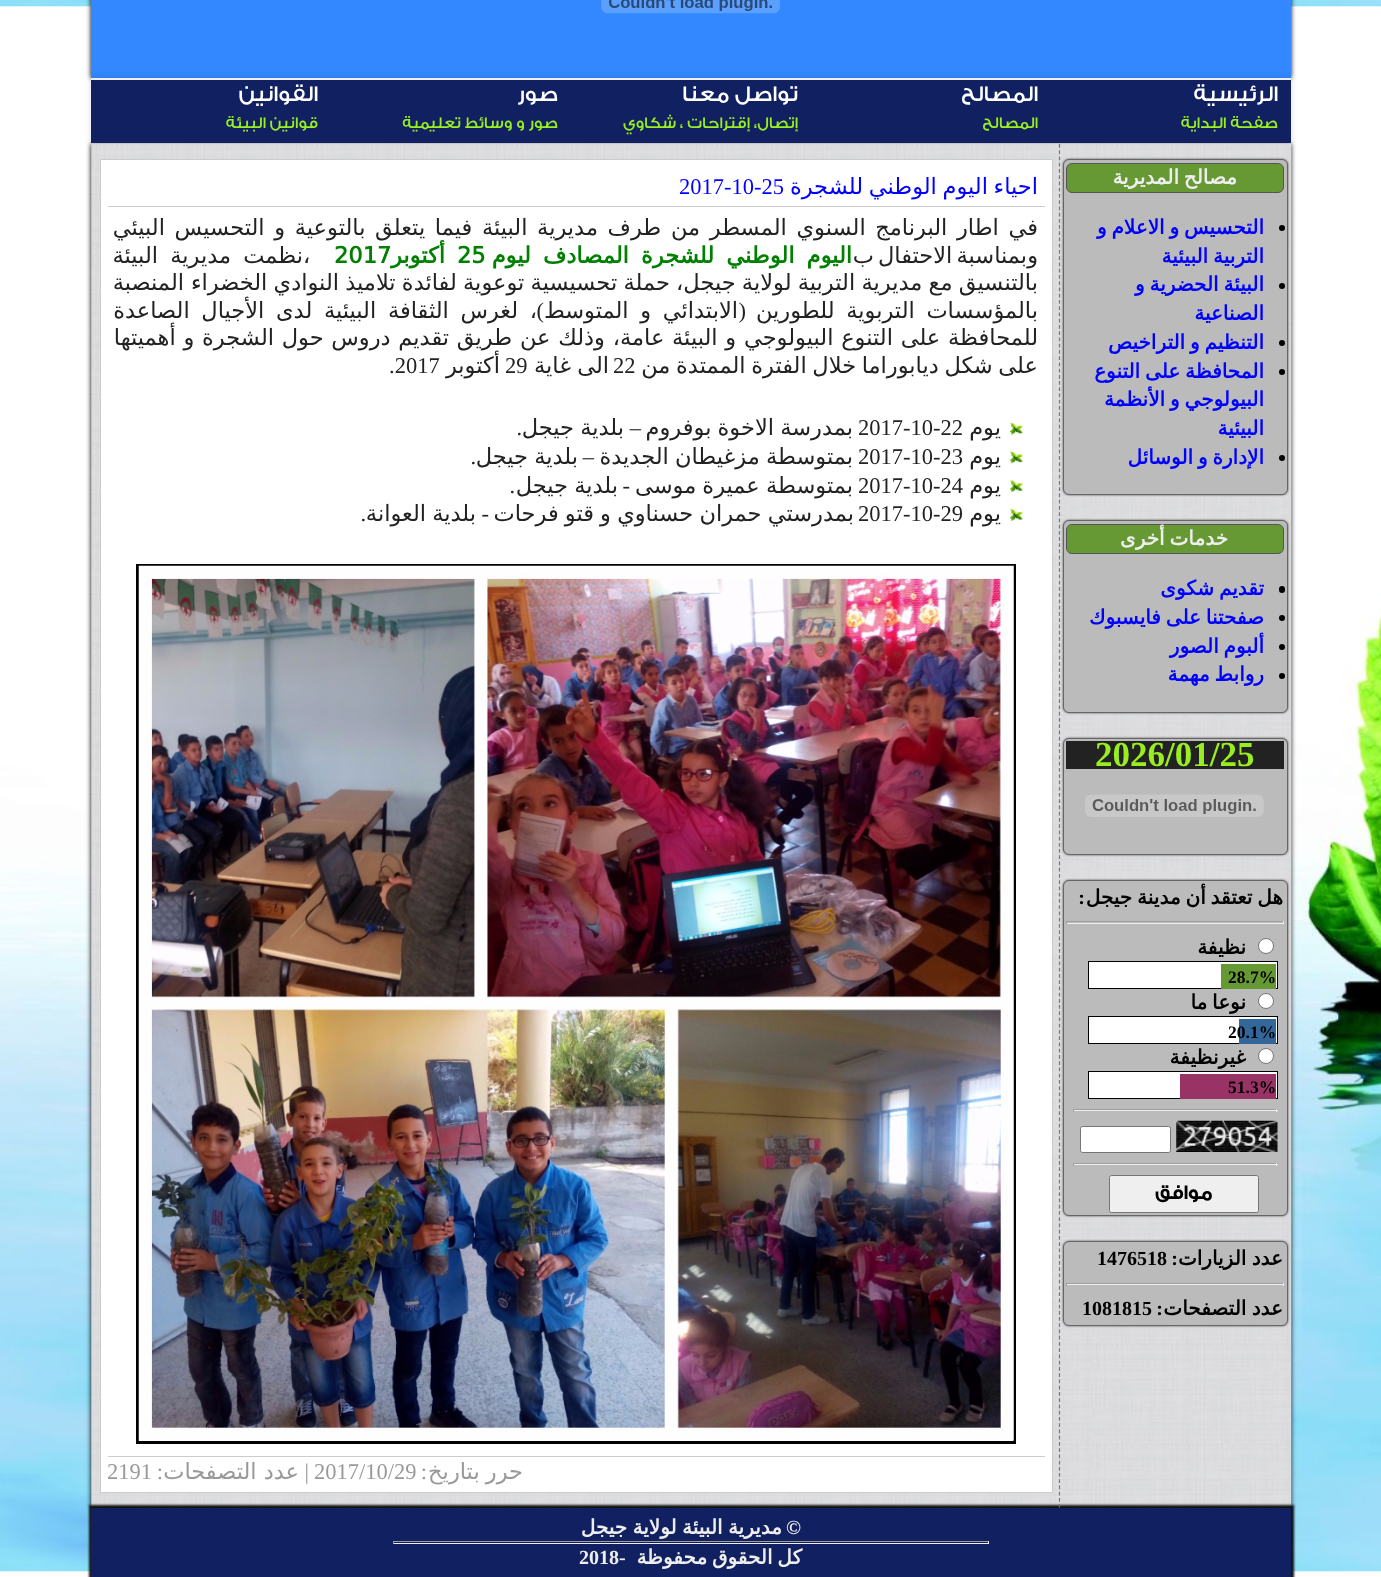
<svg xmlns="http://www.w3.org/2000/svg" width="1381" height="1577">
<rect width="100%" height="100%" fill="#fff"/>
<image x="0" y="0" width="1381" height="1572" href="media/1.png"/>
<rect x="91" y="-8" width="1200" height="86" fill="#000" filter="blur(2.5px)"/>
<rect x="91" width="1200" height="78" fill="#38f"/>
<image x="601" y="0" width="179" height="14" href="media/2.png"/>
<rect x="91" y="78" width="1200" height="66" fill="#00000026" filter="blur(3px)"/>
<rect x="91" y="78" width="1200" height="2" fill="#eee"/>
<rect x="91" y="143" width="1200" height="1" fill="#e5e5e5"/>
<rect x="91" y="144" width="1200" height="1364" fill="#000" filter="blur(2.5px)"/>
<rect x="91" y="80" width="1200" height="63" fill="#102060"/>
<text x="1278" y="101" style="font-family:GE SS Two;font-size:22.5px;font-weight:500;direction:rtl;fill:#fff">الرئيسية</text>
<text x="1278" y="128" style="font-family:GE SS Two;font-size:16.25px;font-weight:500;direction:rtl;fill:#9e2">صفحة البداية</text>
<text x="1038" y="101" style="font-family:GE SS Two;font-size:22.5px;font-weight:500;direction:rtl;fill:#fff">المصالح</text>
<text x="1038" y="128" style="font-family:GE SS Two;font-size:16.25px;font-weight:500;direction:rtl;fill:#9e2">المصالح</text>
<text x="798" y="101" style="font-family:GE SS Two;font-size:22.5px;font-weight:500;direction:rtl;fill:#fff">تواصل معنا</text>
<text x="798" y="128" style="font-family:GE SS Two;font-size:16.25px;font-weight:500;direction:rtl;fill:#9e2">إتصال، إقتراحات ، شكاوي</text>
<text x="558" y="101" style="font-family:GE SS Two;font-size:22.5px;font-weight:500;direction:rtl;fill:#fff">صور</text>
<text x="558" y="128" style="font-family:GE SS Two;font-size:16.25px;font-weight:500;direction:rtl;fill:#9e2">صور و وسائط تعليمية</text>
<text x="318" y="101" style="font-family:GE SS Two;font-size:22.5px;font-weight:500;direction:rtl;fill:#fff">القوانين</text>
<text x="318" y="128" style="font-family:GE SS Two;font-size:16.25px;font-weight:500;direction:rtl;fill:#9e2">قوانين البيئة</text>
<image x="91" y="143" width="1201" height="1364" href="media/3.png"/>
<rect x="89" y="1505" width="1205" height="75" fill="#111" filter="blur(1px)"/>
<path d="M1059.5 144v1363.5" fill="none" stroke="#777" stroke-width="1.2" stroke-dasharray="3.75 2.49"/>
<rect x="1063" y="159" width="225" height="336" rx="6" fill="#555" filter="blur(1px)"/>
<rect x="1063.5" y="159.5" width="224" height="335" rx="5.5" fill="#bbb" stroke="#666"/>
<rect x="1066.5" y="163.5" width="217" height="29" rx="5.5" fill="#693" stroke="#555"/>
<text x="1237" y="184" word-spacing="-1.5" style="font-family:DejaVu Sans;font-size:20px;font-weight:bold;direction:rtl;fill:#eee">مصالح المديرية</text>
<circle cx="1282" cy="228" r="3" fill="#000"/>
<text x="1264" y="234" word-spacing="-1.5" style="font-family:DejaVu Sans;font-size:20px;font-weight:bold;direction:rtl;fill:#00f">التحسيس و الاعلام و</text>
<text x="1264" y="263" word-spacing="-1.5" style="font-family:DejaVu Sans;font-size:20px;font-weight:bold;direction:rtl;fill:#00f">التربية البيئية</text>
<circle cx="1282" cy="286" r="3" fill="#000"/>
<text x="1264" y="291" word-spacing="-1.5" style="font-family:DejaVu Sans;font-size:20px;font-weight:bold;direction:rtl;fill:#00f">البيئة الحضرية و</text>
<text x="1264" y="320" style="font-family:DejaVu Sans;font-size:20px;font-weight:bold;direction:rtl;fill:#00f">الصناعية</text>
<circle cx="1282" cy="343" r="3" fill="#000"/>
<text x="1264" y="349" word-spacing="-1.5" style="font-family:DejaVu Sans;font-size:20px;font-weight:bold;direction:rtl;fill:#00f">التنظيم و التراخيص</text>
<circle cx="1282" cy="372" r="3" fill="#000"/>
<text x="1264" y="378" word-spacing="-1.5" style="font-family:DejaVu Sans;font-size:20px;font-weight:bold;direction:rtl;fill:#00f">المحافظة على التنوع</text>
<text x="1264" y="406" word-spacing="-1.5" style="font-family:DejaVu Sans;font-size:20px;font-weight:bold;direction:rtl;fill:#00f">البيولوجي و الأنظمة</text>
<text x="1264" y="435" style="font-family:DejaVu Sans;font-size:20px;font-weight:bold;direction:rtl;fill:#00f">البيئية</text>
<circle cx="1282" cy="458" r="3" fill="#000"/>
<text x="1264" y="464" word-spacing="-1.5" style="font-family:DejaVu Sans;font-size:20px;font-weight:bold;direction:rtl;fill:#00f">الإدارة و الوسائل</text>
<rect x="1063" y="520" width="225" height="193" rx="6" fill="#555" filter="blur(1px)"/>
<rect x="1063.5" y="520.5" width="224" height="192" rx="5.5" fill="#bbb" stroke="#666"/>
<rect x="1066.5" y="524.5" width="217" height="29" rx="5.5" fill="#693" stroke="#555"/>
<text x="1228" y="545" word-spacing="-1.5" style="font-family:DejaVu Sans;font-size:20px;font-weight:bold;direction:rtl;fill:#eee">خدمات أخرى</text>
<rect x="1279" y="586" width="6" height="7" rx="3" fill="#000"/>
<text x="1264" y="595" word-spacing="-1.5" style="font-family:DejaVu Sans;font-size:20px;font-weight:bold;direction:rtl;fill:#00f">تقديم شكوى</text>
<circle cx="1282" cy="618" r="3" fill="#000"/>
<text x="1264" y="624" word-spacing="-1.5" style="font-family:DejaVu Sans;font-size:20px;font-weight:bold;direction:rtl;fill:#00f">صفحتنا على فايسبوك</text>
<circle cx="1282" cy="647" r="3" fill="#000"/>
<text x="1264" y="653" word-spacing="-1.5" style="font-family:DejaVu Sans;font-size:20px;font-weight:bold;direction:rtl;fill:#00f">ألبوم الصور</text>
<circle cx="1282" cy="676" r="3" fill="#000"/>
<text x="1264" y="681" word-spacing="-1.5" style="font-family:DejaVu Sans;font-size:20px;font-weight:bold;direction:rtl;fill:#00f">روابط مهمة</text>
<rect x="1063" y="738" width="225" height="117" rx="6" fill="#555" filter="blur(1px)"/>
<rect x="1063.5" y="738.5" width="224" height="116" rx="5.5" fill="#bbb" stroke="#666"/>
<rect x="1066" y="741" width="218" height="28" fill="#222"/>
<text x="1095" y="766" style="font-family:Liberation Serif;font-size:35px;font-weight:bold;fill:#9e2">2026/01/25</text>
<image x="1085" y="794" width="179" height="23" href="media/4.png"/>
<rect x="1063" y="880" width="225" height="336" rx="6" fill="#555" filter="blur(1px)"/>
<rect x="1063.5" y="880.5" width="224" height="335" rx="5.5" fill="#bbb" stroke="#666"/>
<text x="1283" y="904" word-spacing="-1.5" style="font-family:DejaVu Sans;font-size:20px;font-weight:bold;direction:rtl;fill:#000">هل تعتقد أن مدينة جيجل</text>
<text x="1085" y="904" style="font-family:Liberation Serif;font-size:20px;font-weight:bold;direction:rtl;fill:#000">:</text>
<rect x="1066" y="921" width="218" height="1" fill="#9f9f9f"/>
<rect x="1283" y="921" width="1" height="3" fill="#eee"/>
<rect x="1066" y="923" width="218" height="1" fill="#eee"/>
<rect x="1066" y="921" width="1" height="3" fill="#9f9f9f"/>
<text x="1246" y="954" style="font-family:DejaVu Sans;font-size:20px;font-weight:bold;direction:rtl;fill:#000">نظيفة</text>
<rect x="1088.5" y="961.5" width="189" height="27" fill="#fff" stroke="#000"/>
<rect x="1221" y="964" width="55" height="25" fill="#693"/>
<text x="1228" y="983" style="font-family:Liberation Serif;font-size:17.5px;font-weight:bold;fill:#000">28.7%</text>
<circle cx="1266" cy="946" r="7.5" fill="#fff" stroke="#767676"/>
<text x="1246" y="1009" word-spacing="-1.5" style="font-family:DejaVu Sans;font-size:20px;font-weight:bold;direction:rtl;fill:#000">نوعا ما</text>
<rect x="1088.5" y="1016.5" width="189" height="27" fill="#fff" stroke="#000"/>
<rect x="1239" y="1019" width="37" height="25" fill="#369"/>
<text x="1228" y="1038" style="font-family:Liberation Serif;font-size:17.5px;font-weight:bold;fill:#000">20.1%</text>
<circle cx="1266" cy="1001" r="7.5" fill="#fff" stroke="#767676"/>
<text x="1246" y="1064" style="font-family:DejaVu Sans;font-size:20px;font-weight:bold;direction:rtl;fill:#000">غيرنظيفة</text>
<rect x="1088.5" y="1071.5" width="189" height="27" fill="#fff" stroke="#000"/>
<rect x="1180" y="1074" width="96" height="25" fill="#936"/>
<text x="1228" y="1093" style="font-family:Liberation Serif;font-size:17.5px;font-weight:bold;fill:#000">51.3%</text>
<circle cx="1266" cy="1056" r="7.5" fill="#fff" stroke="#767676"/>
<rect x="1073" y="1109" width="205" height="1" fill="#9f9f9f"/>
<rect x="1276" y="1109" width="1" height="3" fill="#eee"/>
<rect x="1073" y="1110" width="205" height="1" fill="#eee"/>
<rect x="1073" y="1109" width="1" height="3" fill="#9f9f9f"/>
<image x="1176" y="1120" width="102" height="32" href="media/5.png"/>
<rect x="1080.5" y="1126.5" width="90" height="26" rx="2" fill="#fff" stroke="#767676"/>
<rect x="1073" y="1163" width="205" height="1" fill="#9f9f9f"/>
<rect x="1276" y="1163" width="1" height="3" fill="#eee"/>
<rect x="1073" y="1164" width="205" height="1" fill="#eee"/>
<rect x="1073" y="1163" width="1" height="3" fill="#9f9f9f"/>
<rect x="1109.5" y="1175.5" width="149" height="37" rx="2" fill="#efefef" stroke="#767676"/>
<text x="1212" y="1199" style="font-family:GE SS Two;font-size:20px;font-weight:bold;direction:rtl;fill:#000">موافق</text>
<rect x="1063" y="1241" width="225" height="85" rx="6" fill="#555" filter="blur(1px)"/>
<rect x="1063.5" y="1241.5" width="224" height="84" rx="5.5" fill="#bbb" stroke="#666"/>
<text x="1283" y="1265" word-spacing="-1" style="font-family:DejaVu Sans;font-size:20px;font-weight:bold;direction:rtl;fill:#000">عدد الزيارات</text>
<text x="1178" y="1265" style="font-family:Liberation Serif;font-size:20px;font-weight:bold;direction:rtl;fill:#000">:</text>
<text x="1097" y="1265" style="font-family:Liberation Serif;font-size:20px;font-weight:bold;fill:#000">1476518</text>
<rect x="1066" y="1283" width="218" height="1" fill="#9f9f9f"/>
<rect x="1283" y="1283" width="1" height="3" fill="#eee"/>
<rect x="1066" y="1284" width="218" height="1" fill="#eee"/>
<rect x="1066" y="1283" width="1" height="3" fill="#9f9f9f"/>
<text x="1283" y="1315" word-spacing="-1" style="font-family:DejaVu Sans;font-size:20px;font-weight:bold;direction:rtl;fill:#000">عدد التصفحات</text>
<text x="1163" y="1315" style="font-family:Liberation Serif;font-size:20px;font-weight:bold;direction:rtl;fill:#000">:</text>
<text x="1082" y="1315" style="font-family:Liberation Serif;font-size:20px;font-weight:bold;fill:#000">1081815</text>
<rect x="100.5" y="159.5" width="952" height="1333" fill="#fff" stroke="#ccc"/>
<rect x="108" y="206" width="937" height="1" fill="#ccc"/>
<text x="1038" y="194" word-spacing="-1.5" style="font-family:DejaVu Sans;font-size:22.5px;direction:rtl;fill:#00f">احياء اليوم الوطني للشجرة</text>
<text x="679" y="194" style="font-family:Liberation Serif;font-size:22.5px;fill:#00f">2017-10-25</text>
<text x="1038" y="235" word-spacing="2.5" style="font-family:DejaVu Sans;font-size:22.5px;direction:rtl;fill:#222">في اطار البرنامج السنوي المسطر من طرف مديرية البيئة فيما يتعلق بالتوعية و التحسيس البيئي</text>
<text x="1038" y="263" word-spacing="-3" style="font-family:DejaVu Sans;font-size:22.5px;direction:rtl;fill:#222">وبمناسبة الاحتفال ب</text>
<text x="852" y="263" word-spacing="5" style="font-family:DejaVu Sans;font-size:22.5px;font-weight:bold;direction:rtl;fill:#008000">اليوم الوطني للشجرة المصادف ليوم</text>
<text x="457" y="263" style="font-family:DejaVu Sans;font-size:22.5px;font-weight:bold;fill:#008000">25</text>
<text x="445" y="263" style="font-family:DejaVu Sans;font-size:22.5px;font-weight:bold;direction:rtl;fill:#008000">أكتوبر</text>
<text x="334" y="263" style="font-family:DejaVu Sans;font-size:22.5px;font-weight:bold;fill:#008000">2017</text>
<text x="303" y="263" style="font-family:DejaVu Sans;font-size:22.5px;fill:#222">،</text>
<text x="303" y="263" word-spacing="5" style="font-family:DejaVu Sans;font-size:22.5px;direction:rtl;fill:#222">نظمت مديرية البيئة</text>
<text x="1038" y="290" word-spacing="-0.9" style="font-family:DejaVu Sans;font-size:22.5px;direction:rtl;fill:#222">بالتنسيق مع مديرية التربية لولاية جيجل، حملة تحسيسية توعوية لفائدة تلاميذ النوادي الخضراء</text>
<text x="184" y="290" style="font-family:DejaVu Sans;font-size:22.5px;direction:rtl;fill:#222">المنصبة</text>
<text x="1038" y="318" word-spacing="4.5" style="font-family:DejaVu Sans;font-size:22.5px;direction:rtl;fill:#222">بالمؤسسات التربوية للطورين</text>
<text x="746" y="318" style="font-family:Liberation Serif;font-size:22.5px;direction:rtl;fill:#222">(</text>
<text x="738" y="318" word-spacing="4.5" style="font-family:DejaVu Sans;font-size:22.5px;direction:rtl;fill:#222">الابتدائي و المتوسط</text>
<text x="544" y="318" style="font-family:Liberation Serif;font-size:22.5px;direction:rtl;fill:#222">)</text>
<text x="537" y="318" word-spacing="4.5" style="font-family:DejaVu Sans;font-size:22.5px;direction:rtl;fill:#222">، لغرس الثقافة البيئية لدى الأجيال الصاعدة</text>
<text x="1038" y="345" word-spacing="0.6" style="font-family:DejaVu Sans;font-size:22.5px;direction:rtl;fill:#222">للمحافظة على التنوع البيولوجي و البيئة عامة، وذلك عن طريق تقديم دروس حول الشجرة و أهميتها</text>
<text x="1038" y="373" word-spacing="-1.5" style="font-family:DejaVu Sans;font-size:22.5px;direction:rtl;fill:#222">على شكل ديابوراما خلال الفترة الممتدة من</text>
<text x="613" y="373" style="font-family:Liberation Serif;font-size:22.5px;fill:#222">22</text>
<text x="609" y="373" word-spacing="-1" style="font-family:DejaVu Sans;font-size:22.5px;direction:rtl;fill:#222">الى غاية</text>
<text x="505" y="373" style="font-family:Liberation Serif;font-size:22.5px;fill:#222">29</text>
<text x="500" y="373" style="font-family:DejaVu Sans;font-size:22.5px;direction:rtl;fill:#222">أكتوبر</text>
<text x="389" y="373" style="font-family:Liberation Serif;font-size:22.5px;fill:#222">.2017</text>
<image x="1010" y="422" width="13" height="13" href="media/6.png"/>
<text x="1001" y="435" style="font-family:DejaVu Sans;font-size:22.5px;direction:rtl;fill:#222">يوم</text>
<text x="858" y="435" style="font-family:Liberation Serif;font-size:22.5px;fill:#222">2017-10-22</text>
<text x="853" y="435" word-spacing="-1" style="font-family:DejaVu Sans;font-size:22.5px;direction:rtl;fill:#222">بمدرسة الاخوة بوفروم</text>
<text x="641" y="435" style="font-family:Liberation Serif;font-size:22.5px;direction:rtl;fill:#222">–</text>
<text x="624" y="435" word-spacing="-1" style="font-family:DejaVu Sans;font-size:22.5px;direction:rtl;fill:#222">بلدية جيجل</text>
<text x="522" y="435" style="font-family:Liberation Serif;font-size:22.5px;direction:rtl;fill:#222">.</text>
<image x="1010" y="450" width="13" height="14" href="media/7.png"/>
<text x="1001" y="464" style="font-family:DejaVu Sans;font-size:22.5px;direction:rtl;fill:#222">يوم</text>
<text x="858" y="464" style="font-family:Liberation Serif;font-size:22.5px;fill:#222">2017-10-23</text>
<text x="853" y="464" word-spacing="-1" style="font-family:DejaVu Sans;font-size:22.5px;direction:rtl;fill:#222">بمتوسطة مزغيطان الجديدة</text>
<text x="594" y="464" style="font-family:Liberation Serif;font-size:22.5px;direction:rtl;fill:#222">–</text>
<text x="578" y="464" word-spacing="-1" style="font-family:DejaVu Sans;font-size:22.5px;direction:rtl;fill:#222">بلدية جيجل</text>
<text x="476" y="464" style="font-family:Liberation Serif;font-size:22.5px;direction:rtl;fill:#222">.</text>
<image x="1010" y="479" width="13" height="13" href="media/8.png"/>
<text x="1001" y="493" style="font-family:DejaVu Sans;font-size:22.5px;direction:rtl;fill:#222">يوم</text>
<text x="858" y="493" style="font-family:Liberation Serif;font-size:22.5px;fill:#222">2017-10-24</text>
<text x="853" y="493" word-spacing="-1" style="font-family:DejaVu Sans;font-size:22.5px;direction:rtl;fill:#222">بمتوسطة عميرة موسى</text>
<text x="630" y="493" style="font-family:Liberation Serif;font-size:22.5px;direction:rtl;fill:#222">-</text>
<text x="618" y="493" word-spacing="-1" style="font-family:DejaVu Sans;font-size:22.5px;direction:rtl;fill:#222">بلدية جيجل</text>
<text x="515" y="493" style="font-family:Liberation Serif;font-size:22.5px;direction:rtl;fill:#222">.</text>
<image x="1010" y="508" width="13" height="13" href="media/9.png"/>
<text x="1001" y="521" style="font-family:DejaVu Sans;font-size:22.5px;direction:rtl;fill:#222">يوم</text>
<text x="858" y="521" style="font-family:Liberation Serif;font-size:22.5px;fill:#222">2017-10-29</text>
<text x="854" y="521" word-spacing="-1" style="font-family:DejaVu Sans;font-size:22.5px;direction:rtl;fill:#222">بمدرستي حمران حسناوي و قتو فرحات</text>
<text x="489" y="521" style="font-family:Liberation Serif;font-size:22.5px;direction:rtl;fill:#222">-</text>
<text x="476" y="521" word-spacing="-1" style="font-family:DejaVu Sans;font-size:22.5px;direction:rtl;fill:#222">بلدية العوانة</text>
<text x="366" y="521" style="font-family:Liberation Serif;font-size:22.5px;direction:rtl;fill:#222">.</text>
<rect x="137.5" y="565.5" width="877" height="877" fill="none" stroke="#000" stroke-width="3"/>
<image x="138" y="565" width="876" height="876" href="media/10.png"/>
<rect x="108" y="1456" width="937" height="1" fill="#ccc"/>
<text x="523" y="1479" word-spacing="-1" style="font-family:DejaVu Sans;font-size:22.5px;direction:rtl;fill:#999">حرر بتاريخ</text>
<text x="427" y="1479" style="font-family:Liberation Serif;font-size:22.5px;direction:rtl;fill:#999">:</text>
<text x="314" y="1479" style="font-family:Liberation Serif;font-size:22.5px;fill:#999">2017/10/29</text>
<text x="309" y="1479" style="font-family:Liberation Serif;font-size:22.5px;direction:rtl;fill:#999">|</text>
<text x="299" y="1479" style="font-family:DejaVu Sans;font-size:22.5px;direction:rtl;fill:#999">عدد التصفحات</text>
<text x="163" y="1479" style="font-family:Liberation Serif;font-size:22.5px;direction:rtl;fill:#999">:</text>
<text x="107" y="1479" style="font-family:Liberation Serif;font-size:22.5px;fill:#999">2191</text>
<rect x="91" y="1508" width="1200" height="69" fill="#102060"/>
<text x="801" y="1534" style="font-family:Liberation Serif;font-size:20px;font-weight:bold;direction:rtl;fill:#eee">©</text>
<text x="782" y="1534" word-spacing="-1" style="font-family:DejaVu Sans;font-size:20px;font-weight:bold;direction:rtl;fill:#eee">مديرية البيئة لولاية جيجل</text>
<rect x="393" y="1541" width="596" height="1" fill="#9f9f9f"/>
<rect x="988" y="1541" width="1" height="3" fill="#eee"/>
<rect x="393" y="1543" width="596" height="1" fill="#eee"/>
<rect x="393" y="1541" width="1" height="3" fill="#9f9f9f"/>
<text x="802" y="1564" word-spacing="-1.5" style="font-family:DejaVu Sans;font-size:20px;font-weight:bold;direction:rtl;fill:#eee">كل الحقوق محفوظة</text>
<text x="579" y="1564" style="font-family:Liberation Serif;font-size:20px;font-weight:bold;fill:#eee">2018-</text>
</svg>
